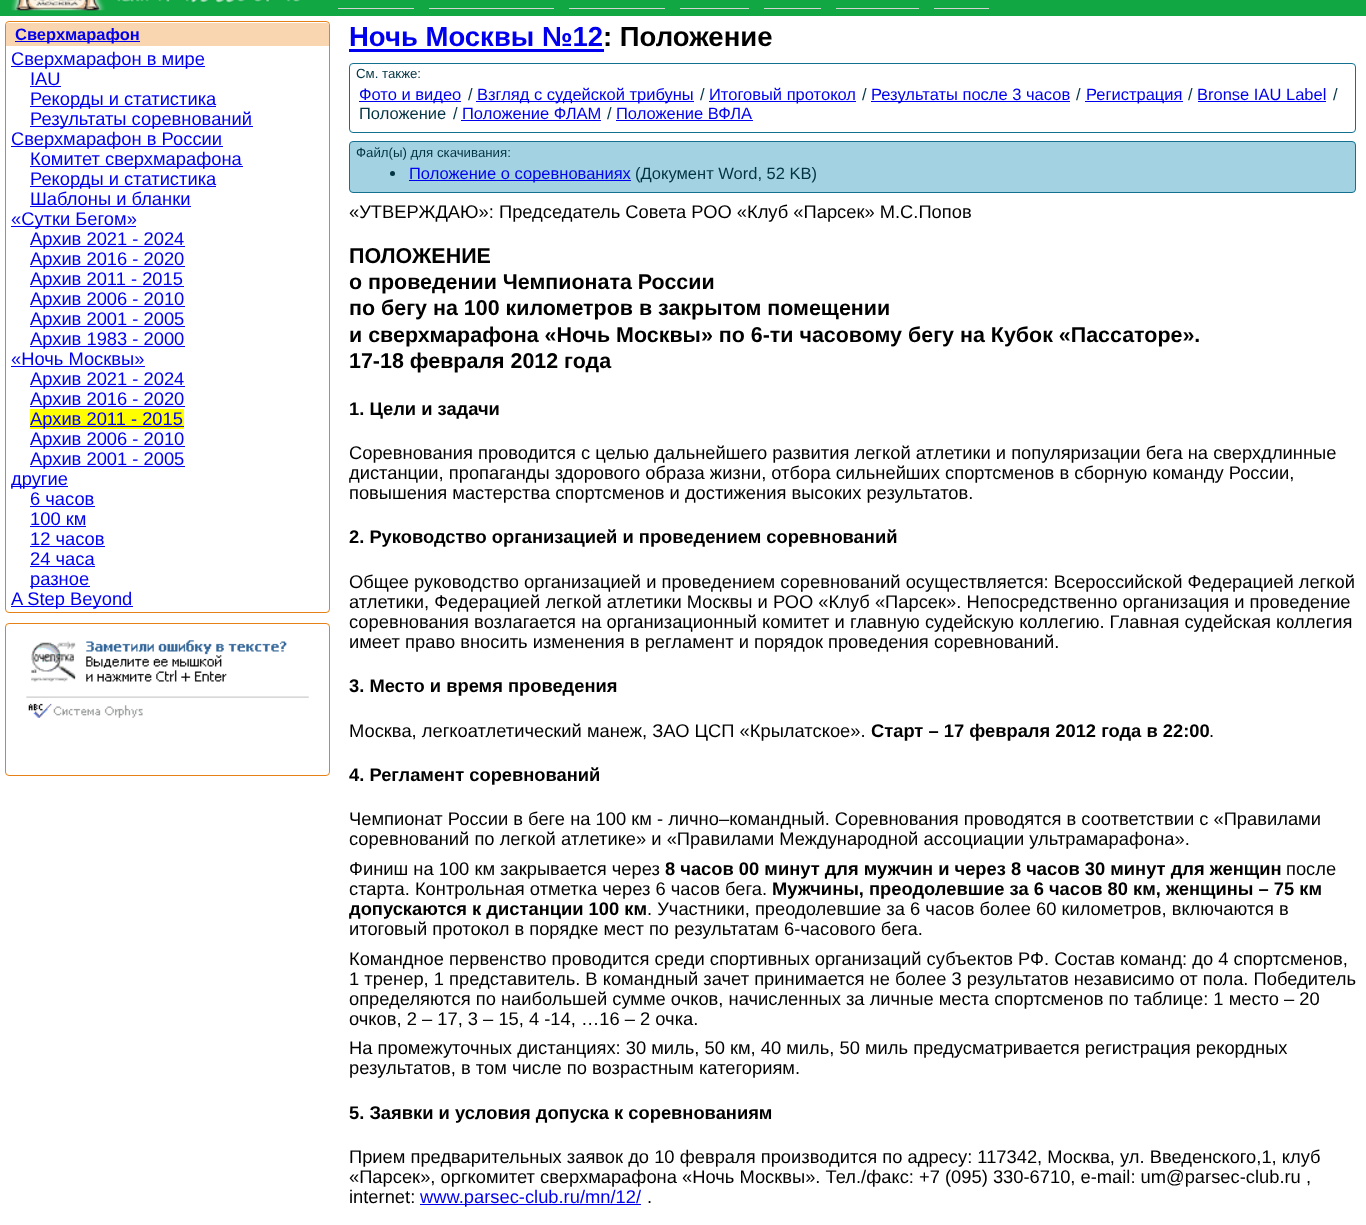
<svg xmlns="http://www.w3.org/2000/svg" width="1366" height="1225">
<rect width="100%" height="100%" fill="#fff"/>
<rect width="1366" height="16" fill="#11a844"/>
<image x="11" y="0" width="289" height="11" href="media/1.png"/>
<rect x="338" y="8" width="76" height="1" fill="#d3d3d3"/>
<rect x="429" y="8" width="125" height="1" fill="#d3d3d3"/>
<rect x="569" y="8" width="96" height="1" fill="#d3d3d3"/>
<rect x="680" y="8" width="69" height="1" fill="#d3d3d3"/>
<rect x="764" y="8" width="57" height="1" fill="#d3d3d3"/>
<rect x="836" y="8" width="83" height="1" fill="#d3d3d3"/>
<rect x="934" y="8" width="55" height="1" fill="#d3d3d3"/>
<rect x="5.5" y="21.5" width="324" height="591" rx="3.5" fill="none" stroke="#e68117"/>
<path d="M8.5 23h318c1.5 0 2.5 1 2.5 2.5v20.5h-323v-20.5c0-1.5 1-2.5 2.5-2.5z" fill="#f9d5b0"/>
<rect x="15" y="41" width="125" height="1" fill="#00e"/>
<text x="15" y="40" style="font-family:Liberation Sans;font-size:16.5px;font-weight:bold;fill:#00e">Сверхмарафон</text>
<rect x="11" y="66" width="194" height="1" fill="#00e"/>
<text x="11" y="65" style="font-family:Liberation Sans;font-size:18.33px;fill:#00e">Сверхмарафон в мире</text>
<text x="30" y="85" style="font-family:Liberation Sans;font-size:18.33px;fill:#00e">IAU</text>
<rect x="30" y="86" width="31" height="1" fill="#00e"/>
<rect x="30" y="106" width="186" height="1" fill="#00e"/>
<text x="30" y="105" style="font-family:Liberation Sans;font-size:18.33px;fill:#00e">Рекорды и статистика</text>
<rect x="30" y="126" width="223" height="1" fill="#00e"/>
<text x="30" y="125" style="font-family:Liberation Sans;font-size:18.33px;fill:#00e">Результаты соревнований</text>
<rect x="11" y="146" width="212" height="1" fill="#00e"/>
<text x="11" y="145" style="font-family:Liberation Sans;font-size:18.33px;fill:#00e">Сверхмарафон в России</text>
<rect x="30" y="166" width="213" height="1" fill="#00e"/>
<text x="30" y="165" style="font-family:Liberation Sans;font-size:18.33px;fill:#00e">Комитет сверхмарафона</text>
<rect x="30" y="186" width="186" height="1" fill="#00e"/>
<text x="30" y="185" style="font-family:Liberation Sans;font-size:18.33px;fill:#00e">Рекорды и статистика</text>
<text x="30" y="205" style="font-family:Liberation Sans;font-size:18.33px;fill:#00e">Шаблоны и бланки</text>
<rect x="30" y="206" width="161" height="1" fill="#00e"/>
<rect x="11" y="226" width="125" height="1" fill="#00e"/>
<text x="11" y="225" style="font-family:Liberation Sans;font-size:18.33px;fill:#00e">«Сутки Бегом»</text>
<rect x="30" y="246" width="155" height="1" fill="#00e"/>
<text x="30" y="245" style="font-family:Liberation Sans;font-size:18.33px;fill:#00e">Архив 2021 - 2024</text>
<rect x="30" y="266" width="155" height="1" fill="#00e"/>
<text x="30" y="265" style="font-family:Liberation Sans;font-size:18.33px;fill:#00e">Архив 2016 - 2020</text>
<rect x="30" y="286" width="154" height="1" fill="#00e"/>
<text x="30" y="285" style="font-family:Liberation Sans;font-size:18.33px;fill:#00e">Архив 2011 - 2015</text>
<rect x="30" y="306" width="155" height="1" fill="#00e"/>
<text x="30" y="305" style="font-family:Liberation Sans;font-size:18.33px;fill:#00e">Архив 2006 - 2010</text>
<rect x="30" y="326" width="155" height="1" fill="#00e"/>
<text x="30" y="325" style="font-family:Liberation Sans;font-size:18.33px;fill:#00e">Архив 2001 - 2005</text>
<rect x="30" y="346" width="155" height="1" fill="#00e"/>
<text x="30" y="345" style="font-family:Liberation Sans;font-size:18.33px;fill:#00e">Архив 1983 - 2000</text>
<text x="11" y="365" style="font-family:Liberation Sans;font-size:18.33px;fill:#00e">«Ночь Москвы»</text>
<rect x="11" y="366" width="134" height="1" fill="#00e"/>
<rect x="30" y="386" width="155" height="1" fill="#00e"/>
<text x="30" y="385" style="font-family:Liberation Sans;font-size:18.33px;fill:#00e">Архив 2021 - 2024</text>
<rect x="30" y="406" width="155" height="1" fill="#00e"/>
<text x="30" y="405" style="font-family:Liberation Sans;font-size:18.33px;fill:#00e">Архив 2016 - 2020</text>
<rect x="30" y="409" width="154" height="20" fill="#ff0"/>
<rect x="30" y="426" width="154" height="1" fill="#00e"/>
<text x="30" y="425" style="font-family:Liberation Sans;font-size:18.33px;fill:#00e">Архив 2011 - 2015</text>
<rect x="30" y="446" width="155" height="1" fill="#00e"/>
<text x="30" y="445" style="font-family:Liberation Sans;font-size:18.33px;fill:#00e">Архив 2006 - 2010</text>
<rect x="30" y="466" width="155" height="1" fill="#00e"/>
<text x="30" y="465" style="font-family:Liberation Sans;font-size:18.33px;fill:#00e">Архив 2001 - 2005</text>
<rect x="11" y="486" width="57" height="1" fill="#00e"/>
<text x="11" y="485" style="font-family:Liberation Sans;font-size:18.33px;fill:#00e">другие</text>
<text x="30" y="505" style="font-family:Liberation Sans;font-size:18.33px;fill:#00e">6 часов</text>
<rect x="30" y="506" width="65" height="1" fill="#00e"/>
<text x="30" y="525" style="font-family:Liberation Sans;font-size:18.33px;fill:#00e">100 км</text>
<rect x="30" y="526" width="56" height="1" fill="#00e"/>
<text x="30" y="545" style="font-family:Liberation Sans;font-size:18.33px;fill:#00e">12 часов</text>
<rect x="30" y="546" width="75" height="1" fill="#00e"/>
<text x="30" y="565" style="font-family:Liberation Sans;font-size:18.33px;fill:#00e">24 часа</text>
<rect x="30" y="566" width="65" height="1" fill="#00e"/>
<rect x="30" y="586" width="60" height="1" fill="#00e"/>
<text x="30" y="585" style="font-family:Liberation Sans;font-size:18.33px;fill:#00e">разное</text>
<rect x="11" y="606" width="122" height="1" fill="#00e"/>
<text x="11" y="605" style="font-family:Liberation Sans;font-size:18.33px;fill:#00e">A Step Beyond</text>
<rect x="5.5" y="623.5" width="324" height="152" rx="3.5" fill="none" stroke="#e68117"/>
<image x="26" y="640" width="283" height="78" href="media/2.png"/>
<text x="349" y="46" style="font-family:Liberation Sans;font-size:27.5px;font-weight:bold;fill:#00e">Ночь Москвы №12</text>
<rect x="349" y="49" width="255" height="3" fill="#00e"/>
<text x="603" y="46" style="font-family:Liberation Sans;font-size:27.5px;font-weight:bold;fill:#000">: Положение</text>
<rect x="349.5" y="63.5" width="1006" height="69" rx="3.5" fill="none" stroke="#13708f"/>
<text x="356" y="78" style="font-family:Liberation Sans;font-size:13.25px;fill:#023444">См. также:</text>
<rect x="359" y="101" width="102" height="1" fill="#00e"/>
<text x="359" y="100" style="font-family:Liberation Sans;font-size:16.5px;fill:#00e">Фото и видео</text>
<text x="468" y="100" style="font-family:Liberation Sans;font-size:16.5px;fill:#023444">/</text>
<rect x="476" y="101" width="218" height="1" fill="#00e"/>
<text x="477" y="100" style="font-family:Liberation Sans;font-size:16.5px;fill:#00e">Взгляд с судейской трибуны</text>
<text x="700" y="100" style="font-family:Liberation Sans;font-size:16.5px;fill:#023444">/</text>
<rect x="709" y="101" width="147" height="1" fill="#00e"/>
<text x="709" y="100" style="font-family:Liberation Sans;font-size:16.5px;fill:#00e">Итоговый протокол</text>
<text x="862" y="100" style="font-family:Liberation Sans;font-size:16.5px;fill:#023444">/</text>
<rect x="871" y="101" width="199" height="1" fill="#00e"/>
<text x="871" y="100" style="font-family:Liberation Sans;font-size:16.5px;fill:#00e">Результаты после 3 часов</text>
<text x="1076" y="100" style="font-family:Liberation Sans;font-size:16.5px;fill:#023444">/</text>
<rect x="1085" y="101" width="98" height="1" fill="#00e"/>
<text x="1086" y="100" style="font-family:Liberation Sans;font-size:16.5px;fill:#00e">Регистрация</text>
<text x="1188" y="100" style="font-family:Liberation Sans;font-size:16.5px;fill:#023444">/</text>
<text x="1197" y="100" style="font-family:Liberation Sans;font-size:16.5px;fill:#00e">Bronse IAU Label</text>
<rect x="1198" y="101" width="128" height="1" fill="#00e"/>
<text x="1333" y="100" style="font-family:Liberation Sans;font-size:16.5px;fill:#023444">/</text>
<text x="359" y="119" style="font-family:Liberation Sans;font-size:16.5px;fill:#023444">Положение</text>
<text x="453" y="119" style="font-family:Liberation Sans;font-size:16.5px;fill:#023444">/</text>
<text x="462" y="119" style="font-family:Liberation Sans;font-size:16.5px;fill:#00e">Положение ФЛАМ</text>
<rect x="461" y="120" width="140" height="1" fill="#00e"/>
<text x="607" y="119" style="font-family:Liberation Sans;font-size:16.5px;fill:#023444">/</text>
<text x="616" y="119" style="font-family:Liberation Sans;font-size:16.5px;fill:#00e">Положение ВФЛА</text>
<rect x="616" y="120" width="137" height="1" fill="#00e"/>
<rect x="349.5" y="141.5" width="1006" height="51" rx="3.5" fill="#a3d3e3" stroke="#13708f"/>
<text x="356" y="157" style="font-family:Liberation Sans;font-size:13.25px;fill:#023444">Файл(ы) для скачивания:</text>
<circle cx="392.5" cy="173.5" r="2.5" fill="#023444"/>
<rect x="409" y="180" width="222" height="1" fill="#00e"/>
<text x="409" y="179" style="font-family:Liberation Sans;font-size:16.5px;fill:#00e">Положение о соревнованиях</text>
<text x="635" y="179" style="font-family:Liberation Sans;font-size:16.5px;fill:#023444">(Документ Word, 52 KB)</text>
<text x="349" y="218" style="font-family:Liberation Sans;font-size:18.33px;fill:#000">«УТВЕРЖДАЮ»: Председатель Совета РОО «Клуб «Парсек» М.С.Попов</text>
<text x="349" y="263" style="font-family:Liberation Sans;font-size:21.45px;font-weight:bold;fill:#000">ПОЛОЖЕНИЕ</text>
<text x="349" y="289" style="font-family:Liberation Sans;font-size:21.45px;font-weight:bold;fill:#000">о проведении Чемпионата России</text>
<text x="349" y="315" style="font-family:Liberation Sans;font-size:21.45px;font-weight:bold;fill:#000">по бегу на 100 километров в закрытом помещении</text>
<text x="349" y="342" style="font-family:Liberation Sans;font-size:21.45px;font-weight:bold;fill:#000">и сверхмарафона «Ночь Москвы» по 6-ти часовому бегу на Кубок «Пассаторе».</text>
<text x="349" y="368" style="font-family:Liberation Sans;font-size:21.45px;font-weight:bold;fill:#000">17-18 февраля 2012 года</text>
<text x="349" y="415" style="font-family:Liberation Sans;font-size:18.33px;font-weight:bold;fill:#000">1. Цели и задачи</text>
<text x="349" y="459" style="font-family:Liberation Sans;font-size:18.33px;fill:#000">Соревнования проводится с целью дальнейшего развития легкой атлетики и популяризации бега на сверхдлинные</text>
<text x="349" y="479" style="font-family:Liberation Sans;font-size:18.33px;fill:#000">дистанции, пропаганды здорового образа жизни, отбора сильнейших спортсменов в сборную команду России,</text>
<text x="349" y="499" style="font-family:Liberation Sans;font-size:18.33px;fill:#000">повышения мастерства спортсменов и достижения высоких результатов.</text>
<text x="349" y="543" style="font-family:Liberation Sans;font-size:18.33px;font-weight:bold;fill:#000">2. Руководство организацией и проведением соревнований</text>
<text x="349" y="588" style="font-family:Liberation Sans;font-size:18.33px;fill:#000">Общее руководство организацией и проведением соревнований осуществляется: Всероссийской Федерацией легкой</text>
<text x="349" y="608" style="font-family:Liberation Sans;font-size:18.33px;fill:#000">атлетики, Федерацией легкой атлетики Москвы и РОО «Клуб «Парсек». Непосредственно организация и проведение</text>
<text x="349" y="628" style="font-family:Liberation Sans;font-size:18.33px;fill:#000">соревнования возлагается на организационный комитет и главную судейскую коллегию. Главная судейская коллегия</text>
<text x="349" y="648" style="font-family:Liberation Sans;font-size:18.33px;fill:#000">имеет право вносить изменения в регламент и порядок проведения соревнований.</text>
<text x="349" y="692" style="font-family:Liberation Sans;font-size:18.33px;font-weight:bold;fill:#000">3. Место и время проведения</text>
<text x="349" y="737" style="font-family:Liberation Sans;font-size:18.33px;fill:#000">Москва, легкоатлетический манеж, ЗАО ЦСП «Крылатское».</text>
<text x="871" y="737" style="font-family:Liberation Sans;font-size:18.33px;font-weight:bold;fill:#000">Старт – 17 февраля 2012 года в 22:00</text>
<text x="1209" y="737" style="font-family:Liberation Sans;font-size:18.33px;fill:#000">.</text>
<text x="349" y="781" style="font-family:Liberation Sans;font-size:18.33px;font-weight:bold;fill:#000">4. Регламент соревнований</text>
<text x="349" y="825" style="font-family:Liberation Sans;font-size:18.33px;fill:#000">Чемпионат России в беге на 100 км - лично–командный. Соревнования проводятся в соответствии с «Правилами</text>
<text x="349" y="845" style="font-family:Liberation Sans;font-size:18.33px;fill:#000">соревнований по легкой атлетике» и «Правилами Международной ассоциации ультрамарафона».</text>
<text x="349" y="875" style="font-family:Liberation Sans;font-size:18.33px;fill:#000">Финиш на 100 км закрывается через</text>
<text x="665" y="875" style="font-family:Liberation Sans;font-size:18.33px;font-weight:bold;fill:#000">8 часов 00 минут для мужчин и через 8 часов 30 минут для женщин</text>
<text x="1286" y="875" style="font-family:Liberation Sans;font-size:18.33px;fill:#000">после</text>
<text x="349" y="895" style="font-family:Liberation Sans;font-size:18.33px;fill:#000">старта. Контрольная отметка через 6 часов бега.</text>
<text x="772" y="895" style="font-family:Liberation Sans;font-size:18.33px;font-weight:bold;fill:#000">Мужчины, преодолевшие за 6 часов 80 км, женщины – 75 км</text>
<text x="349" y="915" style="font-family:Liberation Sans;font-size:18.33px;font-weight:bold;fill:#000">допускаются к дистанции 100 км</text>
<text x="647" y="915" style="font-family:Liberation Sans;font-size:18.33px;fill:#000">. Участники, преодолевшие за 6 часов более 60 километров, включаются в</text>
<text x="349" y="935" style="font-family:Liberation Sans;font-size:18.33px;fill:#000">итоговый протокол в порядке мест по результатам 6-часового бега.</text>
<text x="349" y="965" style="font-family:Liberation Sans;font-size:18.33px;fill:#000">Командное первенство проводится среди спортивных организаций субъектов РФ. Состав команд: до 4 спортсменов,</text>
<text x="349" y="985" style="font-family:Liberation Sans;font-size:18.33px;fill:#000">1 тренер, 1 представитель. В командный зачет принимается не более 3 результатов независимо от пола. Победитель</text>
<text x="349" y="1005" style="font-family:Liberation Sans;font-size:18.33px;fill:#000">определяются по наибольшей сумме очков, начисленных за личные места спортсменов по таблице: 1 место – 20</text>
<text x="349" y="1025" style="font-family:Liberation Sans;font-size:18.33px;fill:#000">очков, 2 – 17, 3 – 15, 4 -14, …16 – 2 очка.</text>
<text x="349" y="1054" style="font-family:Liberation Sans;font-size:18.33px;fill:#000">На промежуточных дистанциях: 30 миль, 50 км, 40 миль, 50 миль предусматривается регистрация рекордных</text>
<text x="349" y="1074" style="font-family:Liberation Sans;font-size:18.33px;fill:#000">результатов, в том числе по возрастным категориям.</text>
<text x="349" y="1119" style="font-family:Liberation Sans;font-size:18.33px;font-weight:bold;fill:#000">5. Заявки и условия допуска к соревнованиям</text>
<text x="349" y="1163" style="font-family:Liberation Sans;font-size:18.33px;fill:#000">Прием предварительных заявок до 10 февраля производится по адресу: 117342, Москва, ул. Введенского,1, клуб</text>
<text x="349" y="1183" style="font-family:Liberation Sans;font-size:18.33px;fill:#000">«Парсек», оргкомитет сверхмарафона «Ночь Москвы». Тел./факс: +7 (095) 330-6710, e-mail: um@parsec-club.ru ,</text>
<text x="349" y="1203" style="font-family:Liberation Sans;font-size:18.33px;fill:#000">internet:</text>
<rect x="420" y="1204" width="221" height="1" fill="#00e"/>
<text x="420" y="1203" style="font-family:Liberation Sans;font-size:18.33px;fill:#00e">www.parsec-club.ru/mn/12/</text>
<text x="647" y="1203" style="font-family:Liberation Sans;font-size:18.33px;fill:#000">.</text>
</svg>
